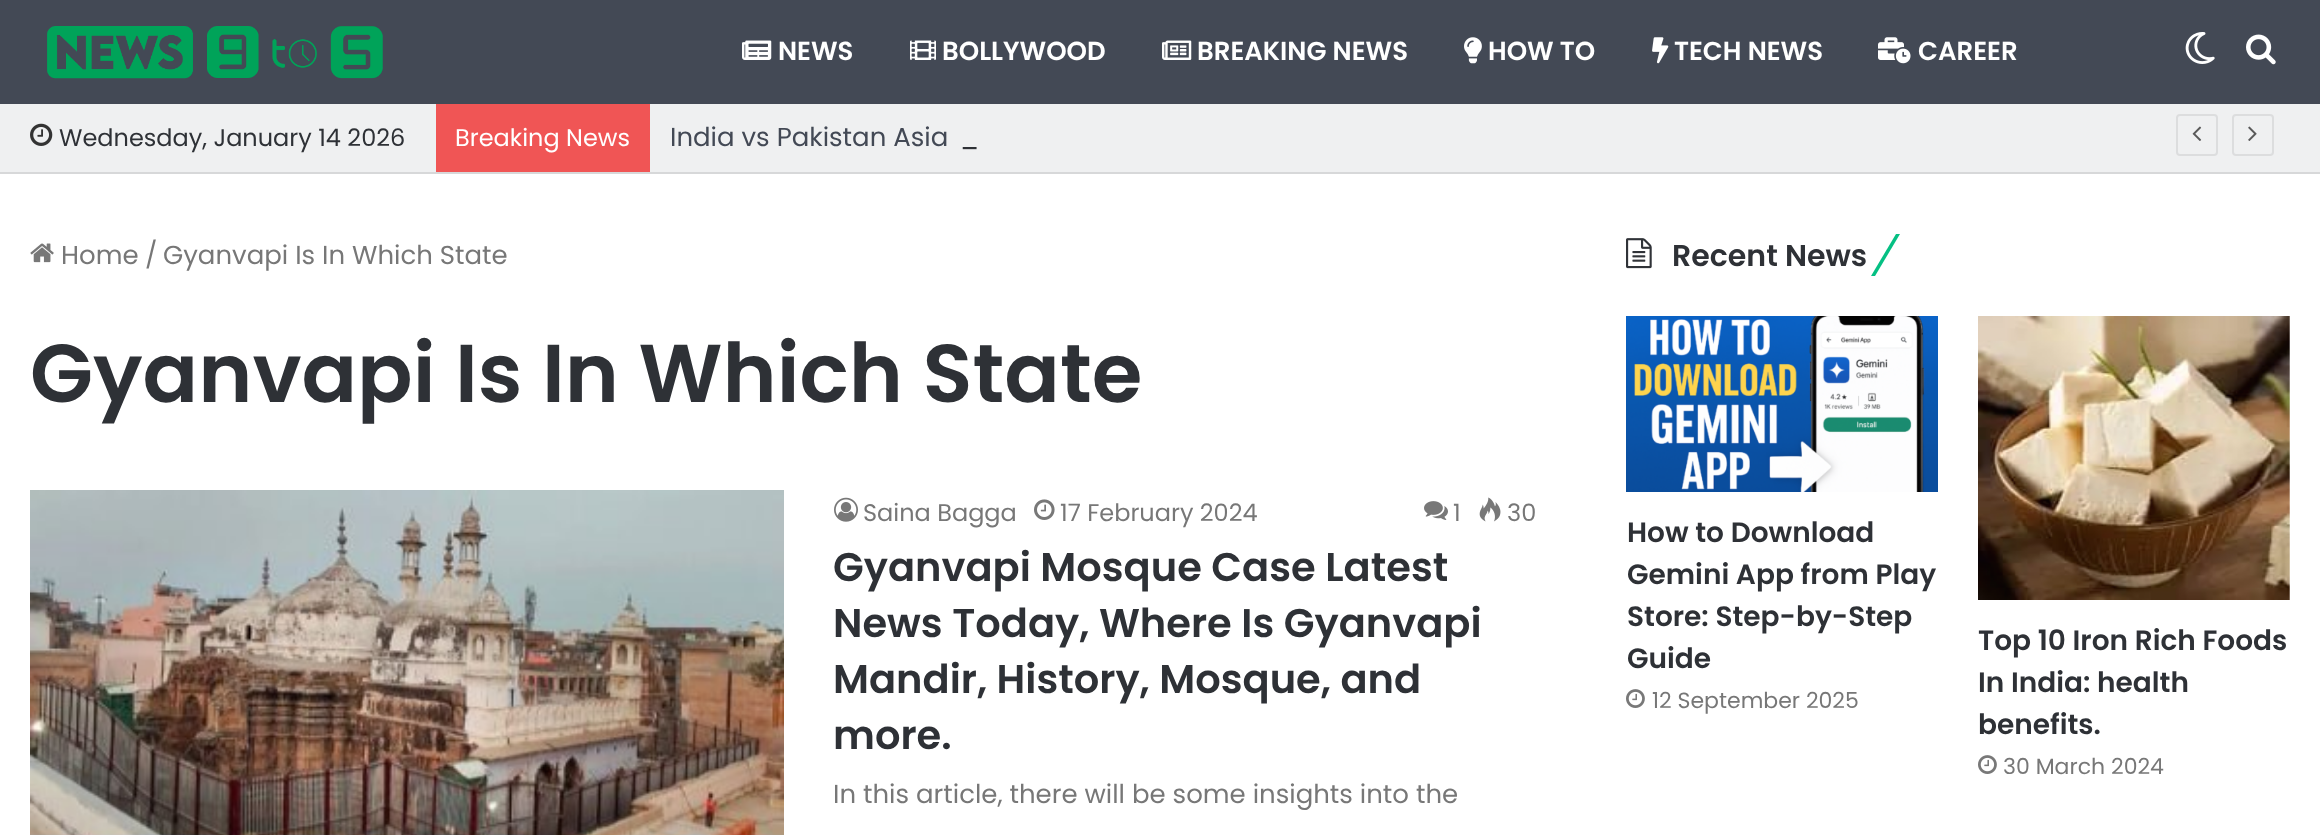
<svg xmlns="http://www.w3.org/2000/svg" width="2320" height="835">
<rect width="100%" height="100%" fill="#fff"/>
<rect width="2320" height="104" fill="#434955"/>
<image x="47" y="26" width="336" height="53" href="media/1.png"/>
<image x="742" y="40" width="30" height="20" href="media/2.png"/>
<text x="778" y="60" style="font-family:Poppins;font-size:26px;font-weight:600;fill:#fff">NEWS</text>
<image x="910" y="40" width="26" height="20" href="media/3.png"/>
<text x="942" y="60" style="font-family:Poppins;font-size:26px;font-weight:600;fill:#fff">BOLLYWOOD</text>
<image x="1162" y="40" width="30" height="20" href="media/4.png"/>
<text x="1197" y="60" style="font-family:Poppins;font-size:26px;font-weight:600;fill:#fff">BREAKING NEWS</text>
<image x="1464" y="37" width="18" height="27" href="media/5.png"/>
<text x="1488" y="60" style="font-family:Poppins;font-size:26px;font-weight:600;fill:#fff">HOW TO</text>
<image x="1652" y="37" width="17" height="27" href="media/6.png"/>
<text x="1674" y="60" style="font-family:Poppins;font-size:26px;font-weight:600;fill:#fff">TECH NEWS</text>
<image x="1878" y="37" width="33" height="27" href="media/7.png"/>
<text x="1918" y="60" style="font-family:Poppins;font-size:26px;font-weight:600;fill:#fff">CAREER</text>
<image x="2185" y="32" width="30" height="32" href="media/8.png"/>
<image x="2246" y="34" width="30" height="31" href="media/9.png"/>
<rect y="104" width="2320" height="68" fill="#eff0f1"/>
<rect y="172" width="2320" height="2" fill="#d7d8d9"/>
<image x="30" y="123" width="23" height="23" href="media/10.png"/>
<text x="59" y="146" style="font-family:Poppins;font-size:24px;fill:#2e3136">Wednesday, January 14 2026</text>
<rect x="436" y="104" width="214" height="68" fill="#f05555"/>
<text x="455" y="146" style="font-family:Poppins;font-size:24px;fill:#fff">Breaking News</text>
<text x="670" y="146" style="font-family:Poppins;font-size:26px;fill:#434955">India vs Pakistan Asia</text>
<text x="960" y="146" style="font-family:Poppins;font-size:26px;fill:#2e3136">_</text>
<rect x="2177" y="115" width="40" height="40" rx="3" fill="none" stroke="#dcddde" stroke-width="2"/>
<image x="2192" y="126" width="10" height="15" href="media/11.png"/>
<rect x="2233" y="115" width="40" height="40" rx="3" fill="none" stroke="#dcddde" stroke-width="2"/>
<image x="2248" y="126" width="9" height="15" href="media/12.png"/>
<image x="30" y="243" width="24" height="20" href="media/13.png"/>
<text x="61" y="264" style="font-family:Poppins;font-size:26px;fill:#777">Home</text>
<text x="145" y="264" style="font-family:Poppins;font-size:26px;fill:#777">/</text>
<text x="163" y="264" style="font-family:Poppins;font-size:26px;fill:#777">Gyanvapi Is In Which State</text>
<text x="30" y="402" style="font-family:Poppins;font-size:82px;font-weight:600;fill:#2e3136">Gyanvapi Is In Which State</text>
<image x="30" y="490" width="754" height="345" href="media/14.png"/>
<image x="834" y="497" width="24" height="25" href="media/15.png"/>
<text x="863" y="521" style="font-family:Poppins;font-size:24px;fill:#777">Saina Bagga</text>
<image x="1034" y="499" width="21" height="21" href="media/16.png"/>
<text x="1060" y="521" style="font-family:Poppins;font-size:24px;fill:#777">17 February 2024</text>
<image x="1424" y="501" width="24" height="19" href="media/17.png"/>
<text x="1453" y="521" style="font-family:Poppins;font-size:24px;fill:#777">1</text>
<image x="1479" y="497" width="22" height="25" href="media/18.png"/>
<text x="1507" y="521" style="font-family:Poppins;font-size:24px;fill:#777">30</text>
<text x="833" y="581" style="font-family:Poppins;font-size:40px;font-weight:600;fill:#2e3136">Gyanvapi Mosque Case Latest</text>
<text x="833" y="637" style="font-family:Poppins;font-size:40px;font-weight:600;fill:#2e3136">News Today, Where Is Gyanvapi</text>
<text x="833" y="693" style="font-family:Poppins;font-size:40px;font-weight:600;fill:#2e3136">Mandir, History, Mosque, and</text>
<text x="833" y="749" style="font-family:Poppins;font-size:40px;font-weight:600;fill:#2e3136">more.</text>
<text x="833" y="803" style="font-family:Poppins;font-size:26px;fill:#777">In this article, there will be some insights into the</text>
<image x="1626" y="238" width="26" height="31" href="media/19.png"/>
<text x="1672" y="266" style="font-family:Poppins;font-size:30px;font-weight:600;fill:#2e3136">Recent News</text>
<path d="M1896 234h4l-25 42h-4z" fill="#05c083"/>
<image x="1626" y="316" width="312" height="176" href="media/20.png"/>
<text x="1627" y="542" style="font-family:Poppins;font-size:28px;font-weight:600;fill:#2e3136">How to Download</text>
<text x="1627" y="584" style="font-family:Poppins;font-size:28px;font-weight:600;fill:#2e3136">Gemini App from Play</text>
<text x="1627" y="626" style="font-family:Poppins;font-size:28px;font-weight:600;fill:#2e3136">Store: Step-by-Step</text>
<text x="1627" y="668" style="font-family:Poppins;font-size:28px;font-weight:600;fill:#2e3136">Guide</text>
<image x="1626" y="689" width="19" height="19" href="media/21.png"/>
<text x="1652" y="708" style="font-family:Poppins;font-size:22px;fill:#777">12 September 2025</text>
<image x="1978" y="316" width="312" height="284" href="media/22.png"/>
<text x="1978" y="650" style="font-family:Poppins;font-size:28px;font-weight:600;fill:#2e3136">Top 10 Iron Rich Foods</text>
<text x="1978" y="692" style="font-family:Poppins;font-size:28px;font-weight:600;fill:#2e3136">In India: health</text>
<text x="1978" y="734" style="font-family:Poppins;font-size:28px;font-weight:600;fill:#2e3136">benefits.</text>
<image x="1978" y="755" width="19" height="19" href="media/21.png"/>
<text x="2003" y="774" style="font-family:Poppins;font-size:22px;fill:#777">30 March 2024</text>
</svg>
